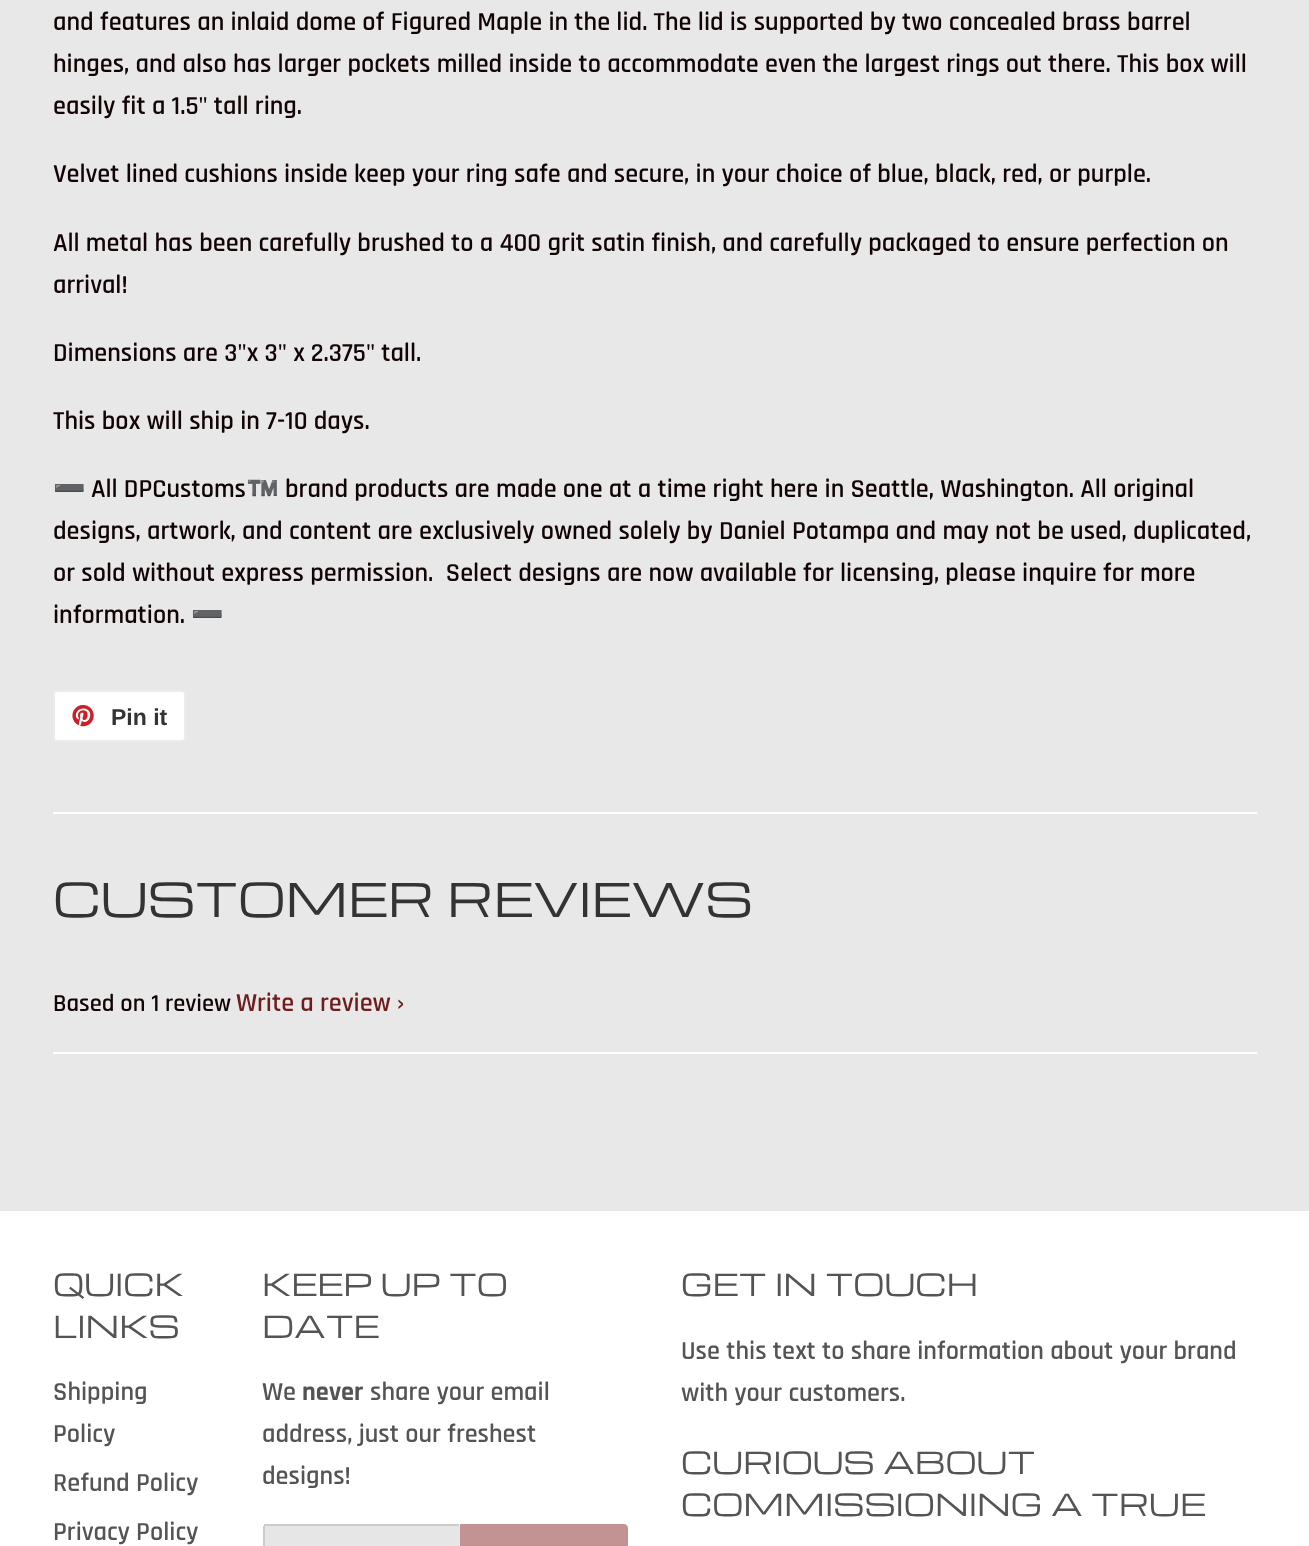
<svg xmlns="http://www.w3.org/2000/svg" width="1309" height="1546">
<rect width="100%" height="100%" fill="#e8e8e8"/>
<text x="53" y="30" style="font-family:Rajdhani;font-size:26.25px;font-weight:600;fill:#120404">and features an inlaid dome of Figured Maple in the lid. The lid is supported by two concealed brass barrel</text>
<text x="53" y="72" style="font-family:Rajdhani;font-size:26.25px;font-weight:600;fill:#120404">hinges, and also has larger pockets milled inside to accommodate even the largest rings out there. This box will</text>
<text x="53" y="114" style="font-family:Rajdhani;font-size:26.25px;font-weight:600;fill:#120404">easily fit a 1.5" tall ring.</text>
<text x="53" y="182" style="font-family:Rajdhani;font-size:26.25px;font-weight:600;fill:#120404">Velvet lined cushions inside keep your ring safe and secure, in your choice of blue, black, red, or purple.</text>
<text x="53" y="251" style="font-family:Rajdhani;font-size:26.25px;font-weight:600;fill:#120404">All metal has been carefully brushed to a 400 grit satin finish, and carefully packaged to ensure perfection on</text>
<text x="53" y="293" style="font-family:Rajdhani;font-size:26.25px;font-weight:600;fill:#120404">arrival!</text>
<text x="53" y="361" style="font-family:Rajdhani;font-size:26.25px;font-weight:600;fill:#120404">Dimensions are 3"x 3" x 2.375" tall.</text>
<text x="53" y="429" style="font-family:Rajdhani;font-size:26.25px;font-weight:600;fill:#120404">This box will ship in 7-10 days.</text>
<text x="53" y="497" style="font-family:Noto Color Emoji;font-size:26.25px;font-weight:bold;fill:#120404">➖</text>
<text x="91" y="497" style="font-family:Rajdhani;font-size:26.25px;font-weight:600;fill:#120404">All DPCustoms</text>
<text x="246" y="497" style="font-family:Noto Color Emoji;font-size:26.25px;font-weight:bold;fill:#120404">™️</text>
<text x="285" y="497" style="font-family:Rajdhani;font-size:26.25px;font-weight:600;fill:#120404">brand products are made one at a time right here in Seattle, Washington. All original</text>
<text x="53" y="539" style="font-family:Rajdhani;font-size:26.25px;font-weight:600;fill:#120404">designs, artwork, and content are exclusively owned solely by Daniel Potampa and may not be used, duplicated,</text>
<text x="53" y="581" style="font-family:Rajdhani;font-size:26.25px;font-weight:600;fill:#120404" xml:space="preserve">or sold without express permission.  Select designs are now available for licensing, please inquire for more</text>
<text x="53" y="623" style="font-family:Rajdhani;font-size:26.25px;font-weight:600;fill:#120404">information.</text>
<text x="191" y="623" style="font-family:Noto Color Emoji;font-size:26.25px;font-weight:bold;fill:#120404">➖</text>
<rect x="54" y="691" width="131" height="50" rx="3" fill="#fff" stroke="#ececec" stroke-width="2"/>
<image x="72" y="705" width="22" height="22" href="media/1.png"/>
<text x="111" y="725" style="font-family:Liberation Sans;font-size:23px;font-weight:bold;fill:#333">Pin it</text>
<rect x="53" y="812" width="1204" height="2" fill="#fff"/>
<text x="53" y="917" style="font-family:Michroma;font-size:45.5px;fill:#333">CUSTOMER REVIEWS</text>
<rect x="53" y="1052" width="1204" height="2" fill="#fff"/>
<text x="53" y="1011" style="font-family:Rajdhani;font-size:24.5px;font-weight:600;fill:#120404">Based on 1 review</text>
<text x="236" y="1011" style="font-family:Rajdhani;font-size:26.25px;font-weight:600;fill:#6f1c1c">Write a review ›</text>
<rect y="1211" width="1309" height="335" fill="#fff"/>
<text x="53" y="1296" style="font-family:Michroma;font-size:29.75px;fill:#545454">QUICK</text>
<text x="53" y="1338" style="font-family:Michroma;font-size:29.75px;fill:#545454">LINKS</text>
<text x="53" y="1400" style="font-family:Rajdhani;font-size:26.25px;font-weight:600;fill:#545454">Shipping</text>
<text x="53" y="1442" style="font-family:Rajdhani;font-size:26.25px;font-weight:600;fill:#545454">Policy</text>
<text x="53" y="1491" style="font-family:Rajdhani;font-size:26.25px;font-weight:600;fill:#545454">Refund Policy</text>
<text x="53" y="1540" style="font-family:Rajdhani;font-size:26.25px;font-weight:600;fill:#545454">Privacy Policy</text>
<text x="262" y="1296" style="font-family:Michroma;font-size:29.75px;fill:#545454">KEEP UP TO</text>
<text x="262" y="1338" style="font-family:Michroma;font-size:29.75px;fill:#545454">DATE</text>
<text x="262" y="1400" style="font-family:Rajdhani;font-size:26.25px;font-weight:600;fill:#545454">We</text>
<text x="302" y="1400" style="font-family:Rajdhani;font-size:26.25px;font-weight:bold;fill:#545454">never</text>
<text x="370" y="1400" style="font-family:Rajdhani;font-size:26.25px;font-weight:600;fill:#545454">share your email</text>
<text x="262" y="1442" style="font-family:Rajdhani;font-size:26.25px;font-weight:600;fill:#545454">address, just our freshest</text>
<text x="262" y="1484" style="font-family:Rajdhani;font-size:26.25px;font-weight:600;fill:#545454">designs!</text>
<rect x="263" y="1524" width="197" height="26" rx="4" fill="#e7e6e6"/>
<rect x="264" y="1524" width="195" height="2" fill="#ccc"/>
<rect x="263" y="1526" width="2" height="20" fill="#ccc"/>
<path d="M460 1524h164c2 0 4 2 4 4v18c0 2-2 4-4 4h-164z" fill="#c39393"/>
<text x="681" y="1296" style="font-family:Michroma;font-size:29.75px;fill:#545454">GET IN TOUCH</text>
<text x="681" y="1359" style="font-family:Rajdhani;font-size:26.25px;font-weight:600;fill:#545454">Use this text to share information about your brand</text>
<text x="681" y="1401" style="font-family:Rajdhani;font-size:26.25px;font-weight:600;fill:#545454">with your customers.</text>
<text x="681" y="1474" style="font-family:Michroma;font-size:29.75px;fill:#545454">CURIOUS ABOUT</text>
<text x="681" y="1516" style="font-family:Michroma;font-size:29.75px;fill:#545454">COMMISSIONING A TRUE</text>
</svg>
